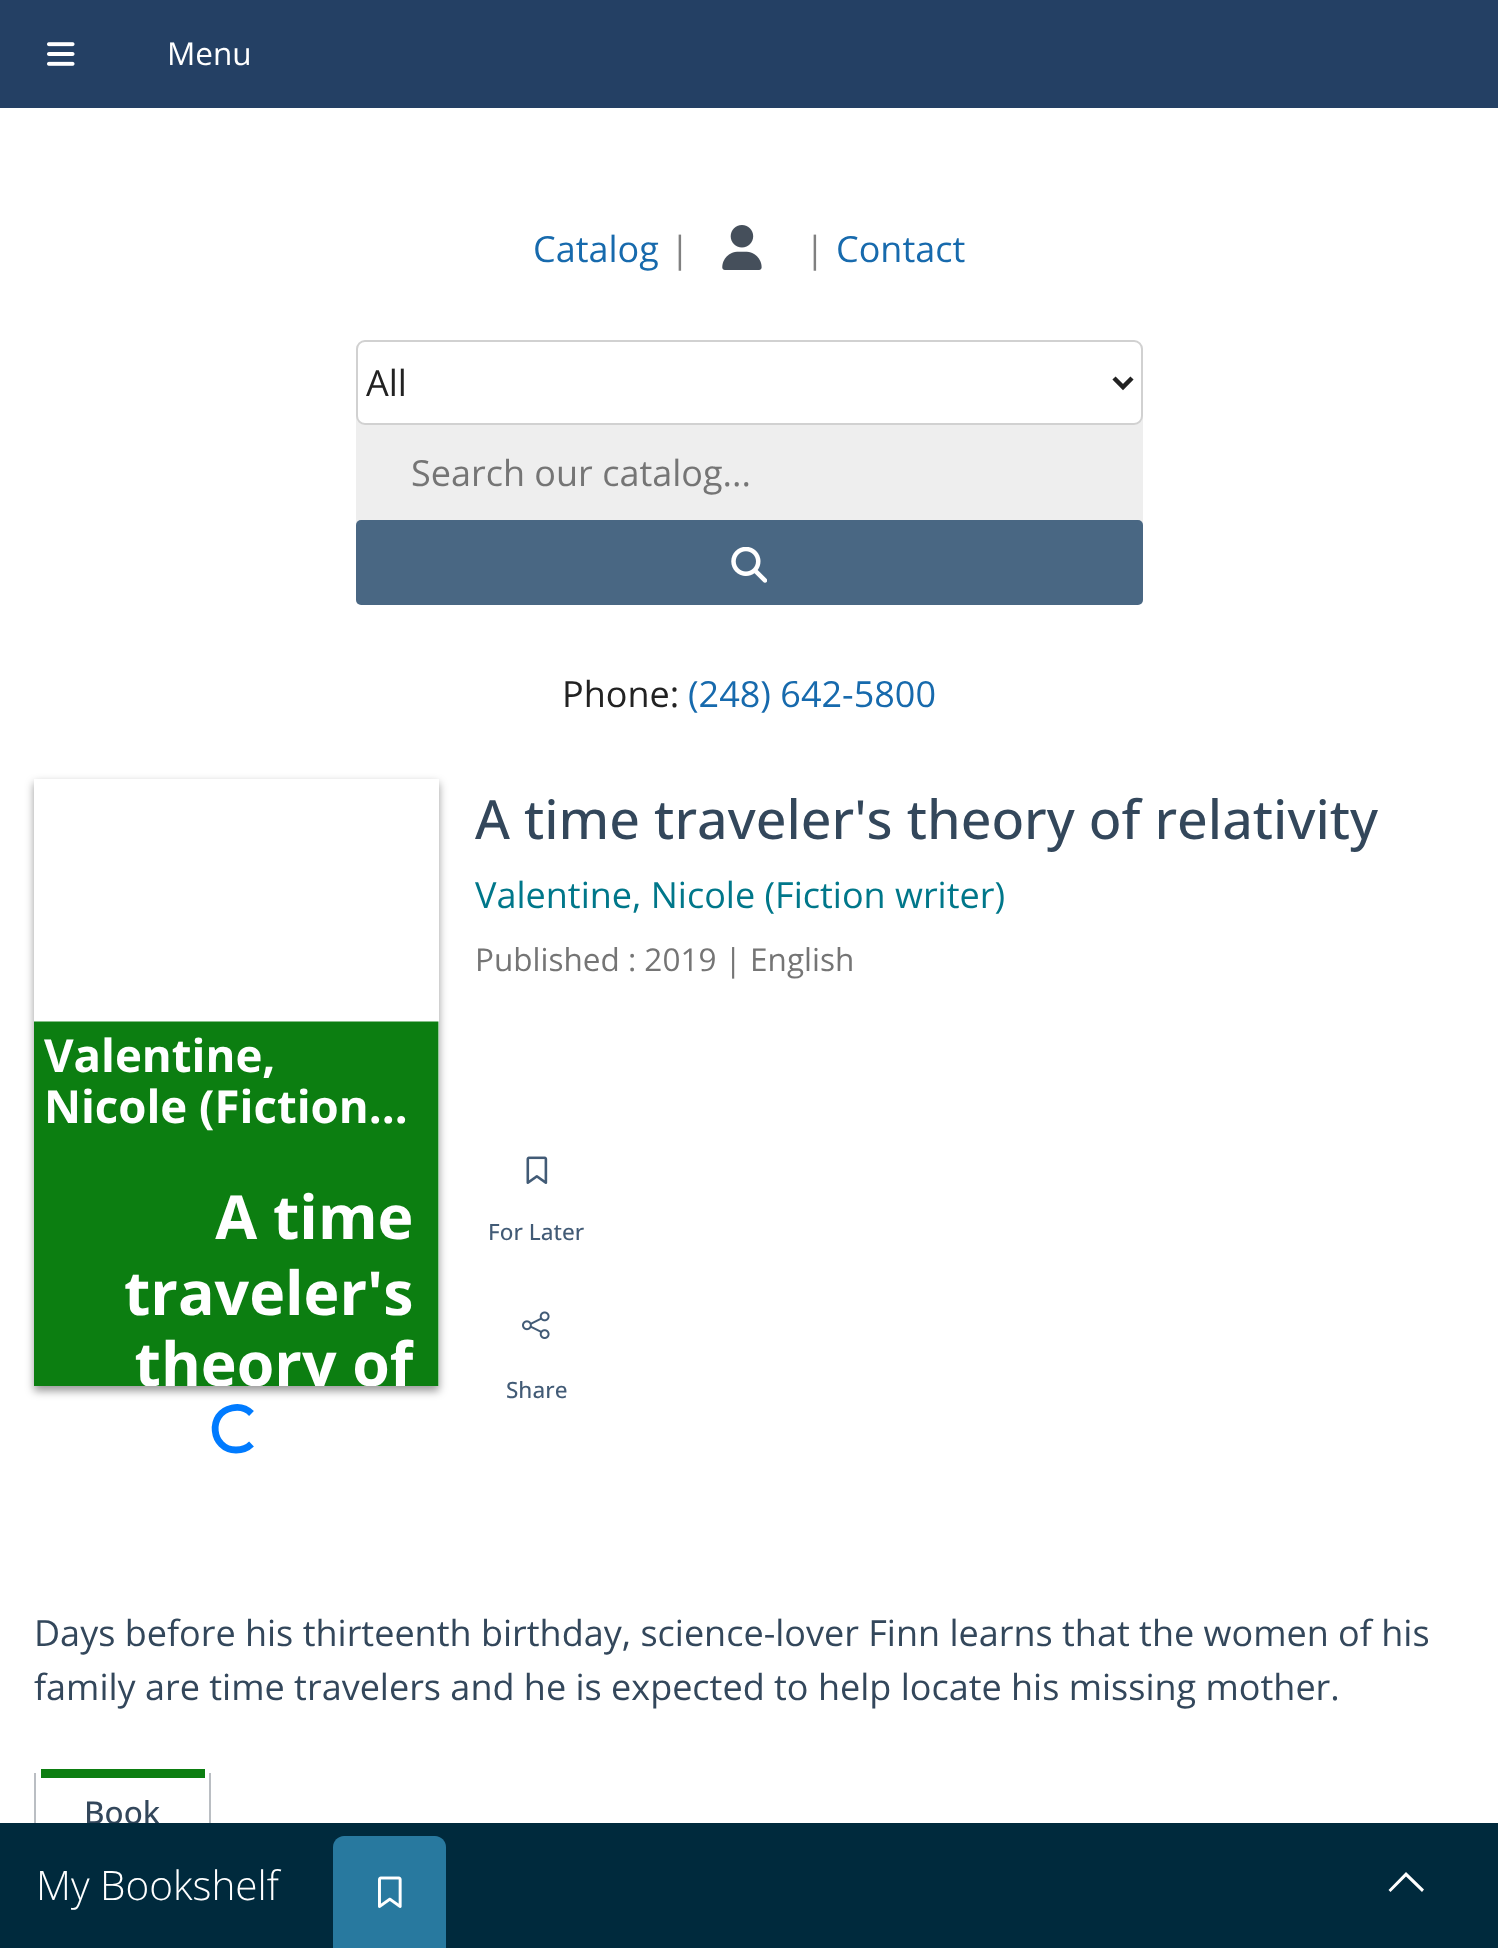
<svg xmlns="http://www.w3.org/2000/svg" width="1498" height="1948">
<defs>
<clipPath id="clip1"><path d="M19 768h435v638h-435zm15 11h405v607h-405z" clip-rule="evenodd"/></clipPath>
</defs>
<rect width="100%" height="100%" fill="#fff"/>
<rect width="1498" height="108" fill="#244064"/>
<image x="47" y="42" width="28" height="24" href="media/1.png"/>
<text x="167" y="65" style="font-family:Open Sans;font-size:31.5px;fill:#fff">Menu</text>
<text x="533" y="262" style="font-family:Open Sans;font-size:36px;fill:#176aad">Catalog</text>
<text x="670" y="262" style="font-family:Open Sans;font-size:36px;fill:#808080">|</text>
<image x="722" y="225" width="40" height="45" href="media/2.png"/>
<text x="805" y="262" style="font-family:Open Sans;font-size:36px;fill:#808080">|</text>
<text x="836" y="262" style="font-family:Open Sans;font-size:36px;fill:#176aad">Contact</text>
<rect x="356" y="340" width="787" height="265" rx="11" fill="#eee"/>
<rect x="357" y="341" width="785" height="83" rx="8" fill="#fff" stroke="#d1d1d1" stroke-width="2"/>
<path d="M1114 378l9 9l9-9" fill="none" stroke="#222" stroke-width="4.5"/>
<text x="366" y="396" style="font-family:Open Sans;font-size:36px;fill:#222">All</text>
<text x="411" y="486" style="font-family:Open Sans;font-size:36px;fill:#757575">Search our catalog...</text>
<rect x="356" y="520" width="787" height="85" rx="5" fill="#496783"/>
<image x="731" y="547" width="36" height="36" href="media/3.png"/>
<text x="562" y="707" style="font-family:Open Sans;font-size:36px;fill:#222">Phone:</text>
<text x="688" y="707" style="font-family:Open Sans;font-size:36px;fill:#176aad">(248) 642-5800</text>
<path d="M251.5 1444c-4 4-9.5 6-15.5 6c-25 0-29-37-4-42c7-1.5 14.5 .5 19.5 5.5" fill="none" stroke="#007bff" stroke-width="6.8"/>
<g clip-path="url(#clip1)">
<rect x="34" y="783" width="405" height="608" fill="#00000066" filter="blur(4.5px)"/>
</g>
<image x="34" y="1021" width="405" height="365" href="media/4.png"/>
<text x="475" y="839" style="font-family:Open Sans;font-size:54px;font-weight:500;fill:#33475b">A time traveler's theory of relativity</text>
<text x="475" y="908" style="font-family:Open Sans;font-size:36px;fill:#00778a">Valentine, Nicole (Fiction writer)</text>
<text x="475" y="971" style="font-family:Open Sans;font-size:31.5px;fill:#757575">Published : 2019 | English</text>
<image x="526" y="1156" width="22" height="28" href="media/5.png"/>
<text x="488" y="1240" style="font-family:Open Sans;font-size:22.5px;font-weight:500;fill:#425b76">For Later</text>
<image x="522" y="1311" width="28" height="28" href="media/6.png"/>
<text x="506" y="1398" style="font-family:Open Sans;font-size:22.5px;font-weight:500;fill:#425b76">Share</text>
<text x="34" y="1646" style="font-family:Open Sans;font-size:36px;fill:#33475b">Days before his thirteenth birthday, science-lover Finn learns that the women of his</text>
<text x="34" y="1700" style="font-family:Open Sans;font-size:36px;fill:#33475b">family are time travelers and he is expected to help locate his missing mother.</text>
<rect x="209" y="1773" width="2" height="50" fill="#babec3"/>
<rect x="34" y="1773" width="2" height="50" fill="#babec3"/>
<rect x="41" y="1769" width="164" height="9" fill="#0c7e11"/>
<text x="84" y="1824" style="font-family:Open Sans;font-size:31.5px;font-weight:500;fill:#33475b">Book</text>
<rect y="1823" width="1498" height="125" fill="#002a3d"/>
<text x="36" y="1900" style="font-family:Open Sans;font-size:40.5px;font-weight:300;fill:#fff">My Bookshelf</text>
<path d="M344 1836h91c6 0 11 5 11 11v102h-113v-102c0-6 5-11 11-11z" fill="#28799f"/>
<image x="378" y="1876" width="24" height="32" href="media/7.png"/>
<path d="M1424 1889.5l-2 2.5l-16-15.5l-15.5 15.5l-2-2l17.5-18z" fill="#fff"/>
</svg>
